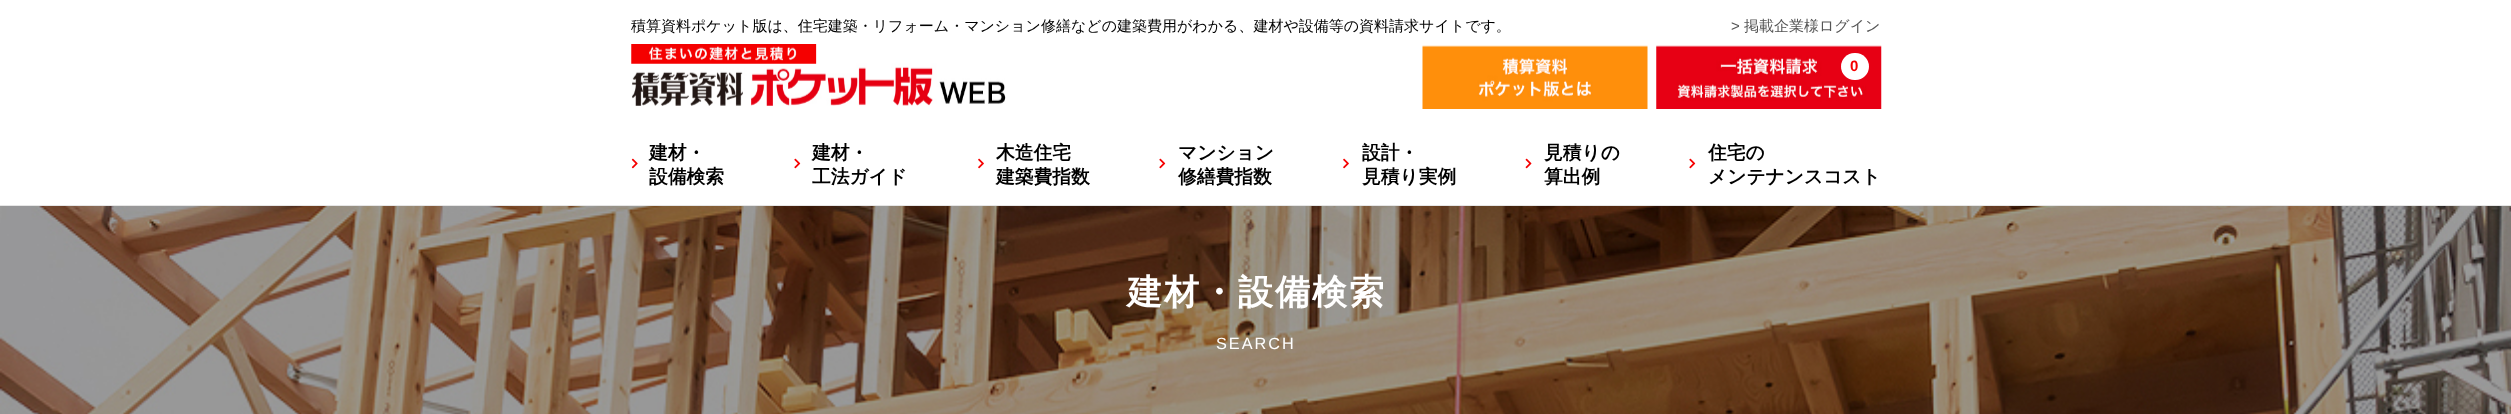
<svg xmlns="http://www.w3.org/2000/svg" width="2511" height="414">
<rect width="100%" height="100%" fill="#fff"/>
<rect y="205" width="2511" height="1" fill="#e6e6e6"/>
<text x="631" y="31" style="font-family:WenQuanYi Zen Hei;font-size:15px;font-weight:500;fill:#000">積算資料ポケット版は、住宅建築・リフォーム・マンション修繕などの建築費用がわかる、建材や設備等の資料請求サイトです。</text>
<image x="631" y="44" width="375" height="62" href="media/1.png"/>
<text x="1731" y="31" style="font-family:Liberation Sans;font-size:15px;fill:#555">&gt;</text>
<text x="1744" y="31" style="font-family:WenQuanYi Zen Hei;font-size:15px;font-weight:500;fill:#555">掲載企業様ログイン</text>
<image x="1422" y="45" width="226" height="64" href="media/2.png"/>
<image x="1656" y="45" width="226" height="64" href="media/3.png"/>
<rect x="1841" y="53" width="28" height="27" rx="13.5" fill="#fff"/>
<text x="1850" y="71" style="font-family:Liberation Sans;font-size:15px;font-weight:bold;fill:#f50000">0</text>
<text x="649" y="159" style="font-family:WenQuanYi Zen Hei;font-size:18.75px;font-weight:bold;fill:#000">建材・</text>
<image x="631" y="158" width="7" height="11" href="media/4.png"/>
<text x="649" y="183" style="font-family:WenQuanYi Zen Hei;font-size:18.75px;font-weight:bold;fill:#000">設備検索</text>
<text x="812" y="159" style="font-family:WenQuanYi Zen Hei;font-size:18.75px;font-weight:bold;fill:#000">建材・</text>
<image x="794" y="158" width="7" height="11" href="media/5.png"/>
<text x="812" y="183" style="font-family:WenQuanYi Zen Hei;font-size:18.75px;font-weight:bold;fill:#000">工法ガイド</text>
<text x="996" y="159" style="font-family:WenQuanYi Zen Hei;font-size:18.75px;font-weight:bold;fill:#000">木造住宅</text>
<image x="978" y="158" width="6" height="11" href="media/6.png"/>
<text x="996" y="183" style="font-family:WenQuanYi Zen Hei;font-size:18.75px;font-weight:bold;fill:#000">建築費指数</text>
<text x="1178" y="159" style="font-family:WenQuanYi Zen Hei;font-size:18.75px;font-weight:bold;fill:#000">マンション</text>
<image x="1159" y="158" width="7" height="11" href="media/5.png"/>
<text x="1178" y="183" style="font-family:WenQuanYi Zen Hei;font-size:18.75px;font-weight:bold;fill:#000">修繕費指数</text>
<text x="1362" y="159" style="font-family:WenQuanYi Zen Hei;font-size:18.75px;font-weight:bold;fill:#000">設計・</text>
<image x="1343" y="158" width="6" height="11" href="media/6.png"/>
<text x="1362" y="183" style="font-family:WenQuanYi Zen Hei;font-size:18.75px;font-weight:bold;fill:#000">見積り実例</text>
<text x="1544" y="159" style="font-family:WenQuanYi Zen Hei;font-size:18.75px;font-weight:bold;fill:#000">見積りの</text>
<image x="1525" y="158" width="7" height="11" href="media/7.png"/>
<text x="1544" y="183" style="font-family:WenQuanYi Zen Hei;font-size:18.75px;font-weight:bold;fill:#000">算出例</text>
<text x="1708" y="159" style="font-family:WenQuanYi Zen Hei;font-size:18.75px;font-weight:bold;fill:#000">住宅の</text>
<image x="1689" y="158" width="7" height="11" href="media/5.png"/>
<text x="1708" y="183" style="font-family:WenQuanYi Zen Hei;font-size:18.75px;font-weight:bold;fill:#000">メンテナンスコスト</text>
<image x="0" y="206" width="2511" height="208" href="media/8.png"/>
<text x="1127" y="304" style="font-family:WenQuanYi Zen Hei;font-size:35px;font-weight:bold;letter-spacing:2px;fill:#fff">建材・設備検索</text>
<text x="1216" y="349" style="font-family:Liberation Sans;font-size:16.25px;letter-spacing:2px;fill:#fff">SEARCH</text>
</svg>
